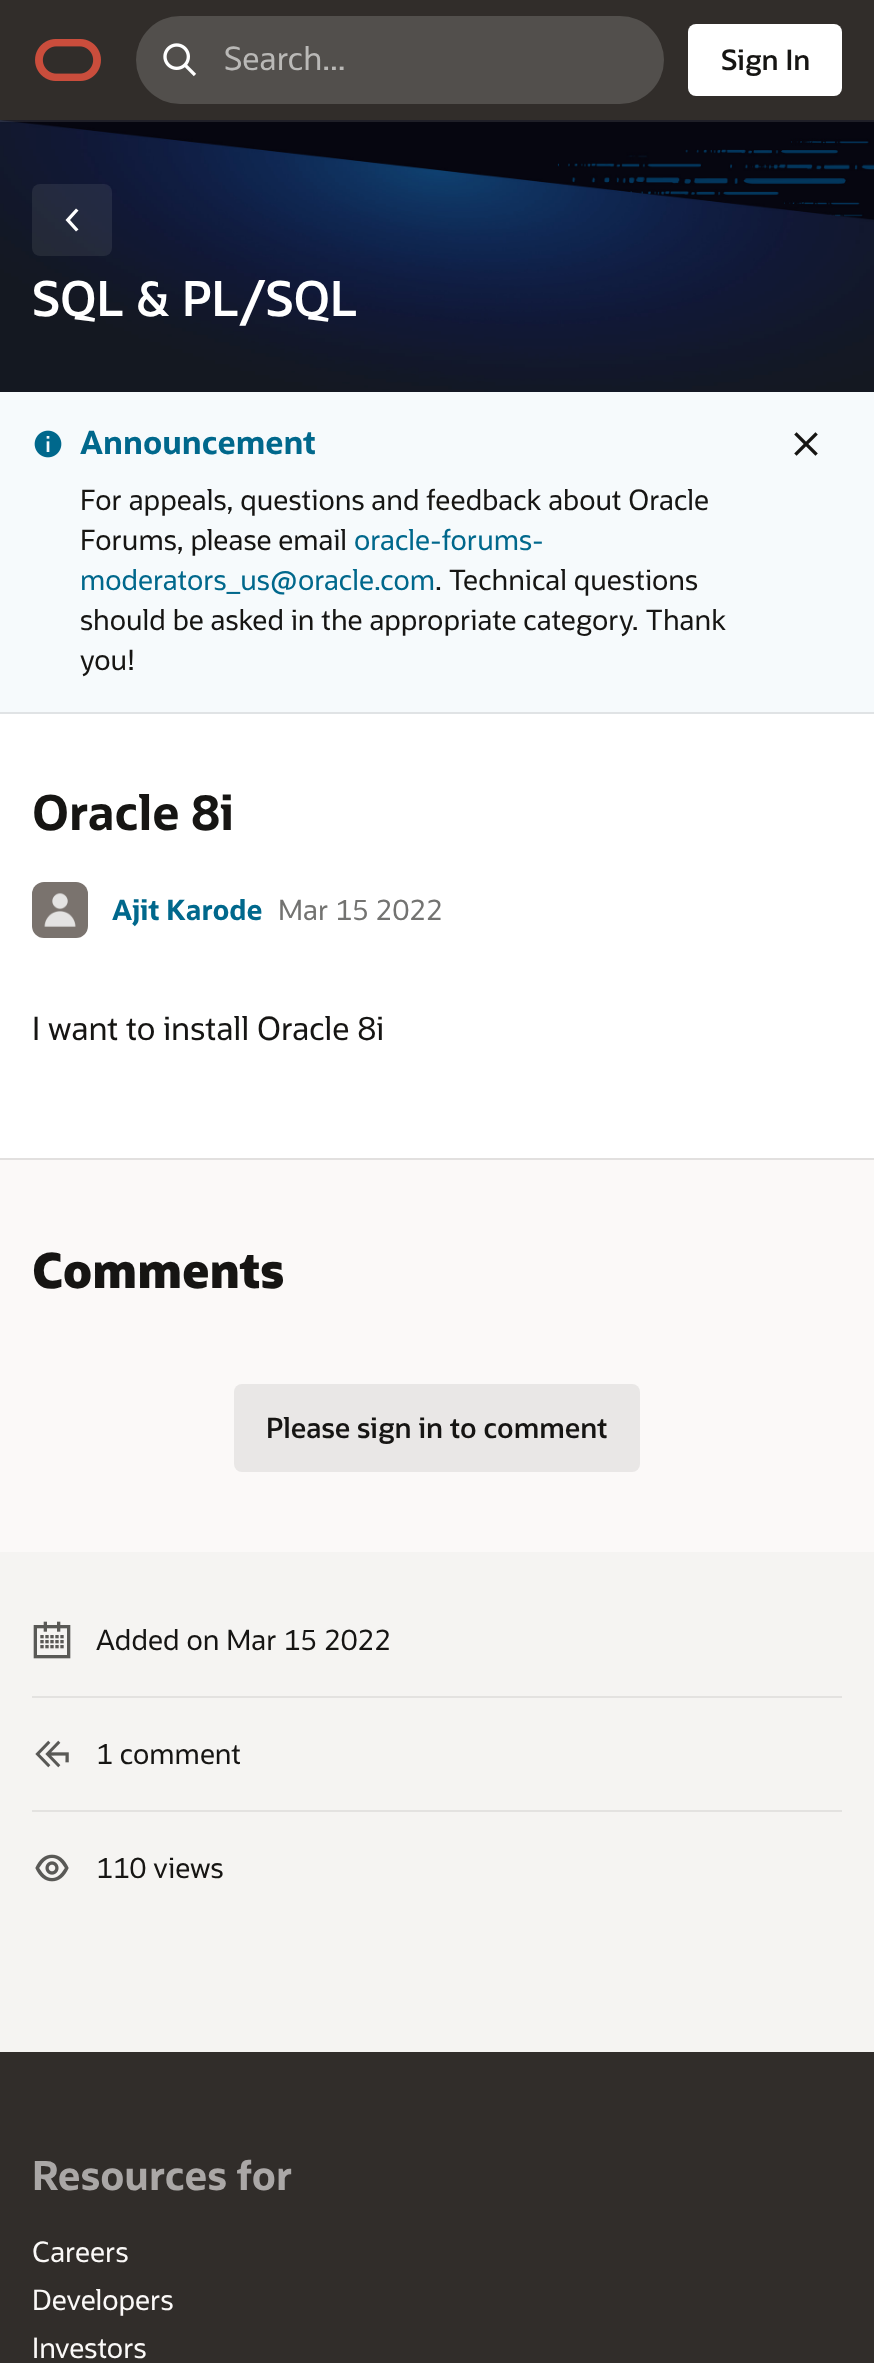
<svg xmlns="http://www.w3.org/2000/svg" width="874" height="2363">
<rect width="100%" height="100%" fill="#312d2a"/>
<image x="0" y="120" width="874" height="272" href="media/3.png"/>
<rect x="-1" y="-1" width="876" height="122" fill="none" stroke="#ffffff1a" stroke-width="2"/>
<image x="35" y="39" width="66" height="42" href="media/1.png"/>
<rect x="136" y="16" width="528" height="88" rx="44" fill="#524f4c"/>
<image x="163" y="43" width="34" height="34" href="media/2.png"/>
<text x="224" y="70" style="font-family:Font;font-size:32px;fill:#bab9b7">Search...</text>
<rect x="688" y="24" width="154" height="72" rx="8" fill="#fff"/>
<text x="721" y="70" style="font-family:Font;font-size:28px;font-weight:600;fill:#161513">Sign In</text>
<rect x="32" y="184" width="80" height="72" rx="8" fill="#fbf9f814"/>
<path d="M78.5 229.5l-2.5 2l-10.5-11.5l10.5-11.5l2.5 2l-8.5 9.5z" fill="#fff"/>
<text x="32" y="316" style="font-family:Font;font-size:48px;font-weight:600;fill:#fff">SQL &amp; PL/SQL</text>
<rect y="1160" width="874" height="392" fill="#fbf9f8"/>
<rect y="392" width="874" height="320" fill="#f6fafc"/>
<rect y="712" width="874" height="2" fill="#e0e3e5"/>
<image x="34" y="430" width="28" height="28" href="media/4.png"/>
<text x="80" y="454" style="font-family:Font;font-size:32px;font-weight:bold;fill:#00688c">Announcement</text>
<text x="80" y="510" style="font-family:Font;font-size:28px;fill:#161513">For appeals, questions and feedback about Oracle</text>
<text x="80" y="550" style="font-family:Font;font-size:28px;fill:#161513">Forums, please email</text>
<text x="354" y="550" style="font-family:Font;font-size:28px;fill:#00688c">oracle-forums-</text>
<text x="80" y="590" style="font-family:Font;font-size:28px;fill:#00688c">moderators_us@oracle.com</text>
<text x="435" y="590" style="font-family:Font;font-size:28px;fill:#161513">. Technical questions</text>
<text x="80" y="630" style="font-family:Font;font-size:28px;fill:#161513">should be asked in the appropriate category. Thank</text>
<text x="80" y="670" style="font-family:Font;font-size:28px;fill:#161513">you!</text>
<image x="794" y="432" width="24" height="24" href="media/5.png"/>
<rect y="714" width="874" height="444" fill="#fff"/>
<text x="32" y="830" style="font-family:Font;font-size:48px;font-weight:bold;fill:#161513">Oracle 8i</text>
<image x="32" y="882" width="56" height="56" href="media/6.png"/>
<text x="112" y="920" style="font-family:Font;font-size:28px;font-weight:bold;fill:#00688c">Ajit Karode</text>
<text x="278" y="920" style="font-family:Font;font-size:28px;fill:#737371">Mar 15 2022</text>
<text x="32" y="1040" style="font-family:Font;font-size:32px;fill:#161513">I want to install Oracle 8i</text>
<rect y="1158" width="874" height="2" fill="#e2e0df"/>
<text x="32" y="1288" style="font-family:Font;font-size:48px;font-weight:800;fill:#161513">Comments</text>
<rect x="234" y="1384" width="406" height="88" rx="8" fill="#e9e7e6"/>
<text x="266" y="1438" style="font-family:Font;font-size:28px;font-weight:600;fill:#161513">Please sign in to comment</text>
<rect y="1552" width="874" height="500" fill="#f5f4f2"/>
<rect x="32" y="1696" width="810" height="2" fill="#e3e2e0"/>
<image x="33" y="1621" width="38" height="38" href="media/7.png"/>
<text x="96" y="1650" style="font-family:Font;font-size:28px;fill:#161513">Added on Mar 15 2022</text>
<rect x="32" y="1810" width="810" height="2" fill="#e3e2e0"/>
<image x="35" y="1740" width="34" height="28" href="media/8.png"/>
<text x="96" y="1764" style="font-family:Font;font-size:28px;fill:#161513">1 comment</text>
<image x="35" y="1854" width="34" height="28" href="media/9.png"/>
<text x="96" y="1878" style="font-family:Font;font-size:28px;fill:#161513">110 views</text>
<text x="32" y="2190" style="font-family:Font;font-size:40px;font-weight:bold;fill:#aaa7a6">Resources for</text>
<text x="32" y="2262" style="font-family:Font;font-size:28px;fill:#fbf9f8">Careers</text>
<text x="32" y="2310" style="font-family:Font;font-size:28px;fill:#fbf9f8">Developers</text>
<text x="32" y="2358" style="font-family:Font;font-size:28px;fill:#fbf9f8">Investors</text>
</svg>
